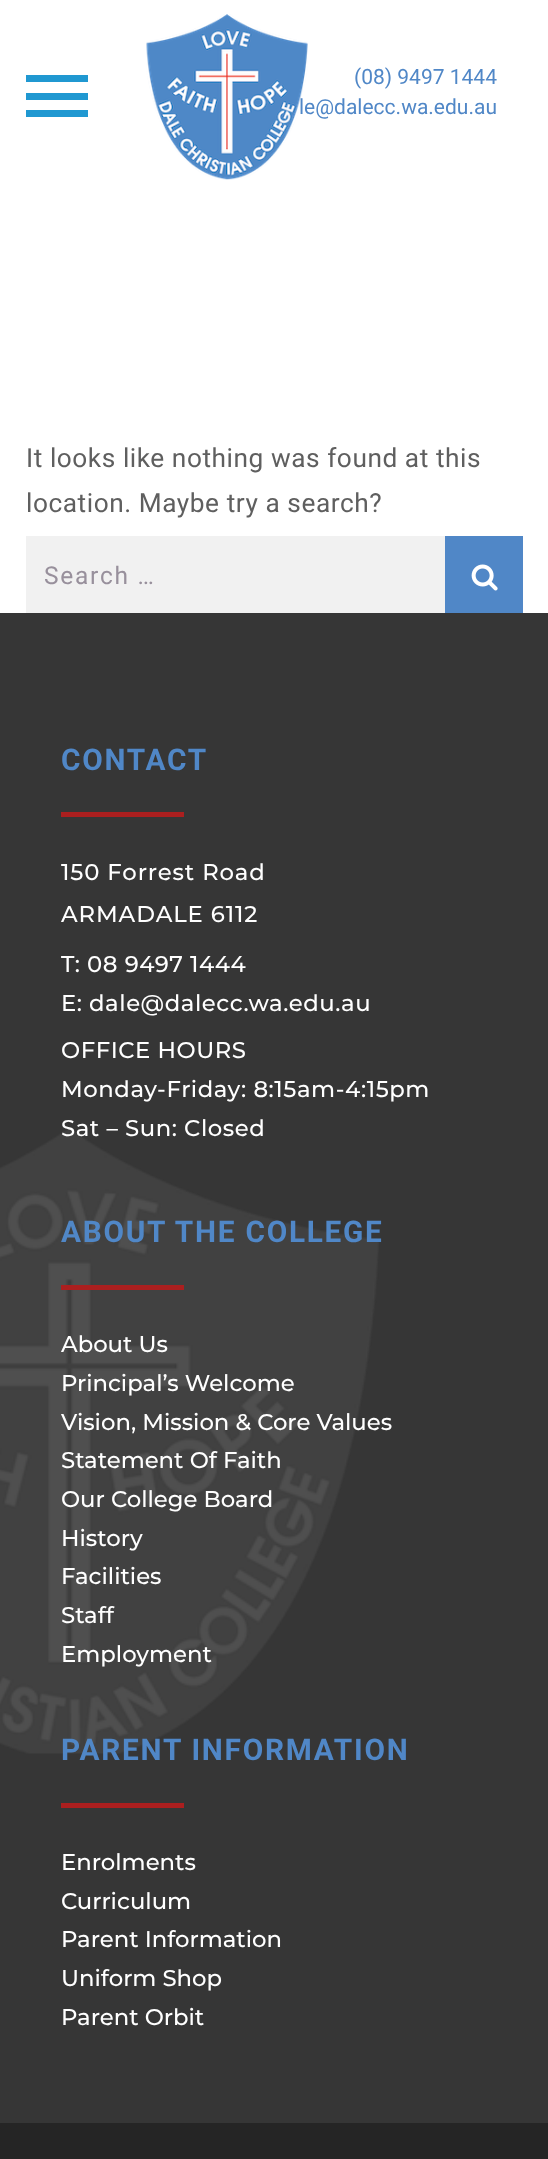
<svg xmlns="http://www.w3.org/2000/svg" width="548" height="2159">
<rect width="100%" height="100%" fill="#fff"/>
<rect x="26" y="75" width="62" height="7" fill="#2098d1"/>
<rect x="26" y="93" width="62" height="7" fill="#2098d1"/>
<rect x="26" y="110" width="62" height="7" fill="#2098d1"/>
<text x="299" y="114" style="font-family:Roboto;font-size:21px;fill:#5087c7">le@dalecc.wa.edu.au</text>
<image x="146" y="14" width="162" height="166" href="media/1.png"/>
<text x="354" y="84" style="font-family:Roboto;font-size:21px;fill:#5087c7">(08) 9497 1444</text>
<text x="26" y="467" style="font-family:Roboto;font-size:26.25px;letter-spacing:0.55px;fill:#5f5f5f">It looks like nothing was found at this</text>
<text x="26" y="512" style="font-family:Roboto;font-size:26.25px;letter-spacing:0.55px;fill:#5f5f5f">location. Maybe try a search?</text>
<rect x="26" y="536" width="419" height="77" fill="#f1f1f1"/>
<text x="44" y="584" style="font-family:Roboto;font-size:24.5px;letter-spacing:1.75px;fill:#98909c">Search …</text>
<rect x="445" y="536" width="78" height="77" fill="#5087c7"/>
<image x="471" y="564" width="27" height="27" href="media/2.png"/>
<rect y="613" width="548" height="1510" fill="#363636"/>
<image x="0" y="1129" width="379" height="625" href="media/3.png"/>
<text x="61" y="770" style="font-family:Roboto;font-size:29.75px;font-weight:bold;letter-spacing:1.75px;fill:#5087c7">CONTACT</text>
<rect x="61" y="812" width="123" height="5" fill="#ab1f1f"/>
<text x="61" y="880" style="font-family:Montserrat;font-size:22.75px;font-weight:500;letter-spacing:0.9px;fill:#fff">150 Forrest Road</text>
<text x="61" y="922" style="font-family:Montserrat;font-size:22.75px;font-weight:500;letter-spacing:0.9px;fill:#fff">ARMADALE 6112</text>
<text x="61" y="972" style="font-family:Montserrat;font-size:22.75px;font-weight:500;letter-spacing:0.55px;fill:#fff">T: 08 9497 1444</text>
<text x="61" y="1011" style="font-family:Montserrat;font-size:22.75px;font-weight:500;letter-spacing:0.55px;fill:#fff">E: dale@dalecc.wa.edu.au</text>
<text x="61" y="1058" style="font-family:Montserrat;font-size:22.75px;font-weight:500;letter-spacing:0.55px;fill:#fff">OFFICE HOURS</text>
<text x="61" y="1097" style="font-family:Montserrat;font-size:22.75px;font-weight:500;letter-spacing:0.55px;fill:#fff">Monday-Friday: 8:15am-4:15pm</text>
<text x="61" y="1136" style="font-family:Montserrat;font-size:22.75px;font-weight:500;letter-spacing:0.55px;fill:#fff">Sat – Sun: Closed</text>
<text x="61" y="1242" style="font-family:Roboto;font-size:29.75px;font-weight:bold;letter-spacing:1.75px;fill:#5087c7">ABOUT THE COLLEGE</text>
<rect x="61" y="1285" width="123" height="5" fill="#ab1f1f"/>
<text x="61" y="1352" style="font-family:Montserrat;font-size:22.75px;font-weight:500;fill:#fff">About Us</text>
<text x="61" y="1391" style="font-family:Montserrat;font-size:22.75px;font-weight:500;fill:#fff">Principal’s Welcome</text>
<text x="61" y="1430" style="font-family:Montserrat;font-size:22.75px;font-weight:500;fill:#fff">Vision, Mission &amp; Core Values</text>
<text x="61" y="1468" style="font-family:Montserrat;font-size:22.75px;font-weight:500;fill:#fff">Statement Of Faith</text>
<text x="61" y="1507" style="font-family:Montserrat;font-size:22.75px;font-weight:500;fill:#fff">Our College Board</text>
<text x="61" y="1546" style="font-family:Montserrat;font-size:22.75px;font-weight:500;fill:#fff">History</text>
<text x="61" y="1584" style="font-family:Montserrat;font-size:22.75px;font-weight:500;fill:#fff">Facilities</text>
<text x="61" y="1623" style="font-family:Montserrat;font-size:22.75px;font-weight:500;fill:#fff">Staff</text>
<text x="61" y="1662" style="font-family:Montserrat;font-size:22.75px;font-weight:500;fill:#fff">Employment</text>
<text x="61" y="1760" style="font-family:Roboto;font-size:29.75px;font-weight:bold;letter-spacing:1.75px;fill:#5087c7">PARENT INFORMATION</text>
<rect x="61" y="1803" width="123" height="5" fill="#ab1f1f"/>
<text x="61" y="1870" style="font-family:Montserrat;font-size:22.75px;font-weight:500;fill:#fff">Enrolments</text>
<text x="61" y="1909" style="font-family:Montserrat;font-size:22.75px;font-weight:500;fill:#fff">Curriculum</text>
<text x="61" y="1947" style="font-family:Montserrat;font-size:22.75px;font-weight:500;fill:#fff">Parent Information</text>
<text x="61" y="1986" style="font-family:Montserrat;font-size:22.75px;font-weight:500;fill:#fff">Uniform Shop</text>
<text x="61" y="2025" style="font-family:Montserrat;font-size:22.75px;font-weight:500;fill:#fff">Parent Orbit</text>
<rect y="2123" width="548" height="36" fill="#252525"/>
</svg>
